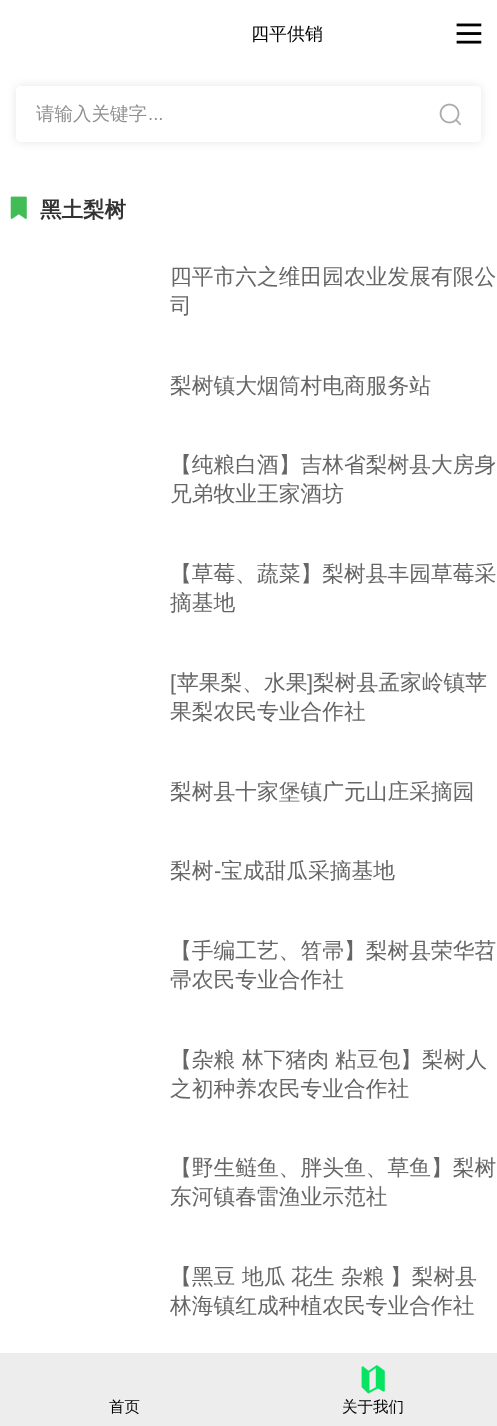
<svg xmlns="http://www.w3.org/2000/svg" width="497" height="1426">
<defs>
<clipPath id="clip1"><path d="M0 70h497v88h-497zm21 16h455c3 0 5 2 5 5v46c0 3-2 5-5 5h-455c-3 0-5-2-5-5v-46c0-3 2-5 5-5z" clip-rule="evenodd"/></clipPath>
</defs>
<rect width="100%" height="100%" fill="#fff"/>
<text x="251" y="40" style="font-family:WenQuanYi Zen Hei;font-size:18px;font-weight:500;fill:#000">四平供销</text>
<image x="456" y="23" width="26" height="21" href="media/1.png"/>
<g clip-path="url(#clip1)">
<rect x="16" y="86" width="465" height="56" rx="5" fill="#0000001a" filter="blur(5px)"/>
</g>
<text x="36" y="120" style="font-family:WenQuanYi Zen Hei;font-size:18.5px;font-weight:500;fill:#919191">请输入关键字</text>
<text x="148" y="120" style="font-family:Liberation Sans;font-size:18.5px;fill:#919191">...</text>
<image x="439" y="103" width="23" height="23" href="media/2.png"/>
<image x="10" y="196" width="17" height="23" href="media/3.png"/>
<text x="40" y="217" style="font-family:WenQuanYi Zen Hei;font-size:21.5px;font-weight:bold;fill:#333">黑土梨树</text>
<text x="170" y="284" style="font-family:WenQuanYi Zen Hei;font-size:21.75px;font-weight:500;fill:#666">四平市六之维田园农业发展有限公</text>
<text x="170" y="313" style="font-family:WenQuanYi Zen Hei;font-size:21.75px;font-weight:500;fill:#666">司</text>
<text x="170" y="393" style="font-family:WenQuanYi Zen Hei;font-size:21.75px;font-weight:500;fill:#666">梨树镇大烟筒村电商服务站</text>
<text x="170" y="472" style="font-family:WenQuanYi Zen Hei;font-size:21.75px;font-weight:500;fill:#666">【纯粮白酒】吉林省梨树县大房身</text>
<text x="170" y="501" style="font-family:WenQuanYi Zen Hei;font-size:21.75px;font-weight:500;fill:#666">兄弟牧业王家酒坊</text>
<text x="170" y="581" style="font-family:WenQuanYi Zen Hei;font-size:21.75px;font-weight:500;fill:#666">【草莓、蔬菜】梨树县丰园草莓采</text>
<text x="170" y="610" style="font-family:WenQuanYi Zen Hei;font-size:21.75px;font-weight:500;fill:#666">摘基地</text>
<text x="170" y="690" style="font-family:Liberation Sans;font-size:21.75px;fill:#666">[</text>
<text x="177" y="690" style="font-family:WenQuanYi Zen Hei;font-size:21.75px;font-weight:500;fill:#666">苹果梨、水果</text>
<text x="307" y="690" style="font-family:Liberation Sans;font-size:21.75px;fill:#666">]</text>
<text x="313" y="690" style="font-family:WenQuanYi Zen Hei;font-size:21.75px;font-weight:500;fill:#666">梨树县孟家岭镇苹</text>
<text x="170" y="719" style="font-family:WenQuanYi Zen Hei;font-size:21.75px;font-weight:500;fill:#666">果梨农民专业合作社</text>
<text x="170" y="799" style="font-family:WenQuanYi Zen Hei;font-size:21.75px;font-weight:500;fill:#666">梨树县十家堡镇广元山庄采摘园</text>
<text x="170" y="878" style="font-family:WenQuanYi Zen Hei;font-size:21.75px;font-weight:500;fill:#666">梨树</text>
<text x="214" y="878" style="font-family:Liberation Sans;font-size:21.75px;fill:#666">-</text>
<text x="221" y="878" style="font-family:WenQuanYi Zen Hei;font-size:21.75px;font-weight:500;fill:#666">宝成甜瓜采摘基地</text>
<text x="170" y="958" style="font-family:WenQuanYi Zen Hei;font-size:21.75px;font-weight:500;fill:#666">【手编工艺、笤帚】梨树县荣华苕</text>
<text x="170" y="987" style="font-family:WenQuanYi Zen Hei;font-size:21.75px;font-weight:500;fill:#666">帚农民专业合作社</text>
<text x="170" y="1067" style="font-family:WenQuanYi Zen Hei;font-size:21.75px;font-weight:500;fill:#666">【杂粮</text>
<text x="242" y="1067" style="font-family:WenQuanYi Zen Hei;font-size:21.75px;font-weight:500;fill:#666">林下猪肉</text>
<text x="335" y="1067" style="font-family:WenQuanYi Zen Hei;font-size:21.75px;font-weight:500;fill:#666">粘豆包】梨树人</text>
<text x="170" y="1096" style="font-family:WenQuanYi Zen Hei;font-size:21.75px;font-weight:500;fill:#666">之初种养农民专业合作社</text>
<text x="170" y="1175" style="font-family:WenQuanYi Zen Hei;font-size:21.75px;font-weight:500;fill:#666">【野生鲢鱼、胖头鱼、草鱼】梨树</text>
<text x="170" y="1204" style="font-family:WenQuanYi Zen Hei;font-size:21.75px;font-weight:500;fill:#666">东河镇春雷渔业示范社</text>
<text x="170" y="1284" style="font-family:WenQuanYi Zen Hei;font-size:21.75px;font-weight:500;fill:#666">【黑豆</text>
<text x="242" y="1284" style="font-family:WenQuanYi Zen Hei;font-size:21.75px;font-weight:500;fill:#666">地瓜</text>
<text x="291" y="1284" style="font-family:WenQuanYi Zen Hei;font-size:21.75px;font-weight:500;fill:#666">花生</text>
<text x="341" y="1284" style="font-family:WenQuanYi Zen Hei;font-size:21.75px;font-weight:500;fill:#666">杂粮</text>
<text x="390" y="1284" style="font-family:WenQuanYi Zen Hei;font-size:21.75px;font-weight:500;fill:#666">】梨树县</text>
<text x="170" y="1313" style="font-family:WenQuanYi Zen Hei;font-size:21.75px;font-weight:500;fill:#666">林海镇红成种植农民专业合作社</text>
<rect y="1353" width="497" height="73" fill="#ededed"/>
<text x="109" y="1412" style="font-family:WenQuanYi Zen Hei;font-size:15.5px;font-weight:500;fill:#000">首页</text>
<image x="361" y="1365" width="24" height="29" href="media/4.png"/>
<text x="342" y="1412" style="font-family:WenQuanYi Zen Hei;font-size:15.5px;font-weight:500;fill:#000">关于我们</text>
</svg>
